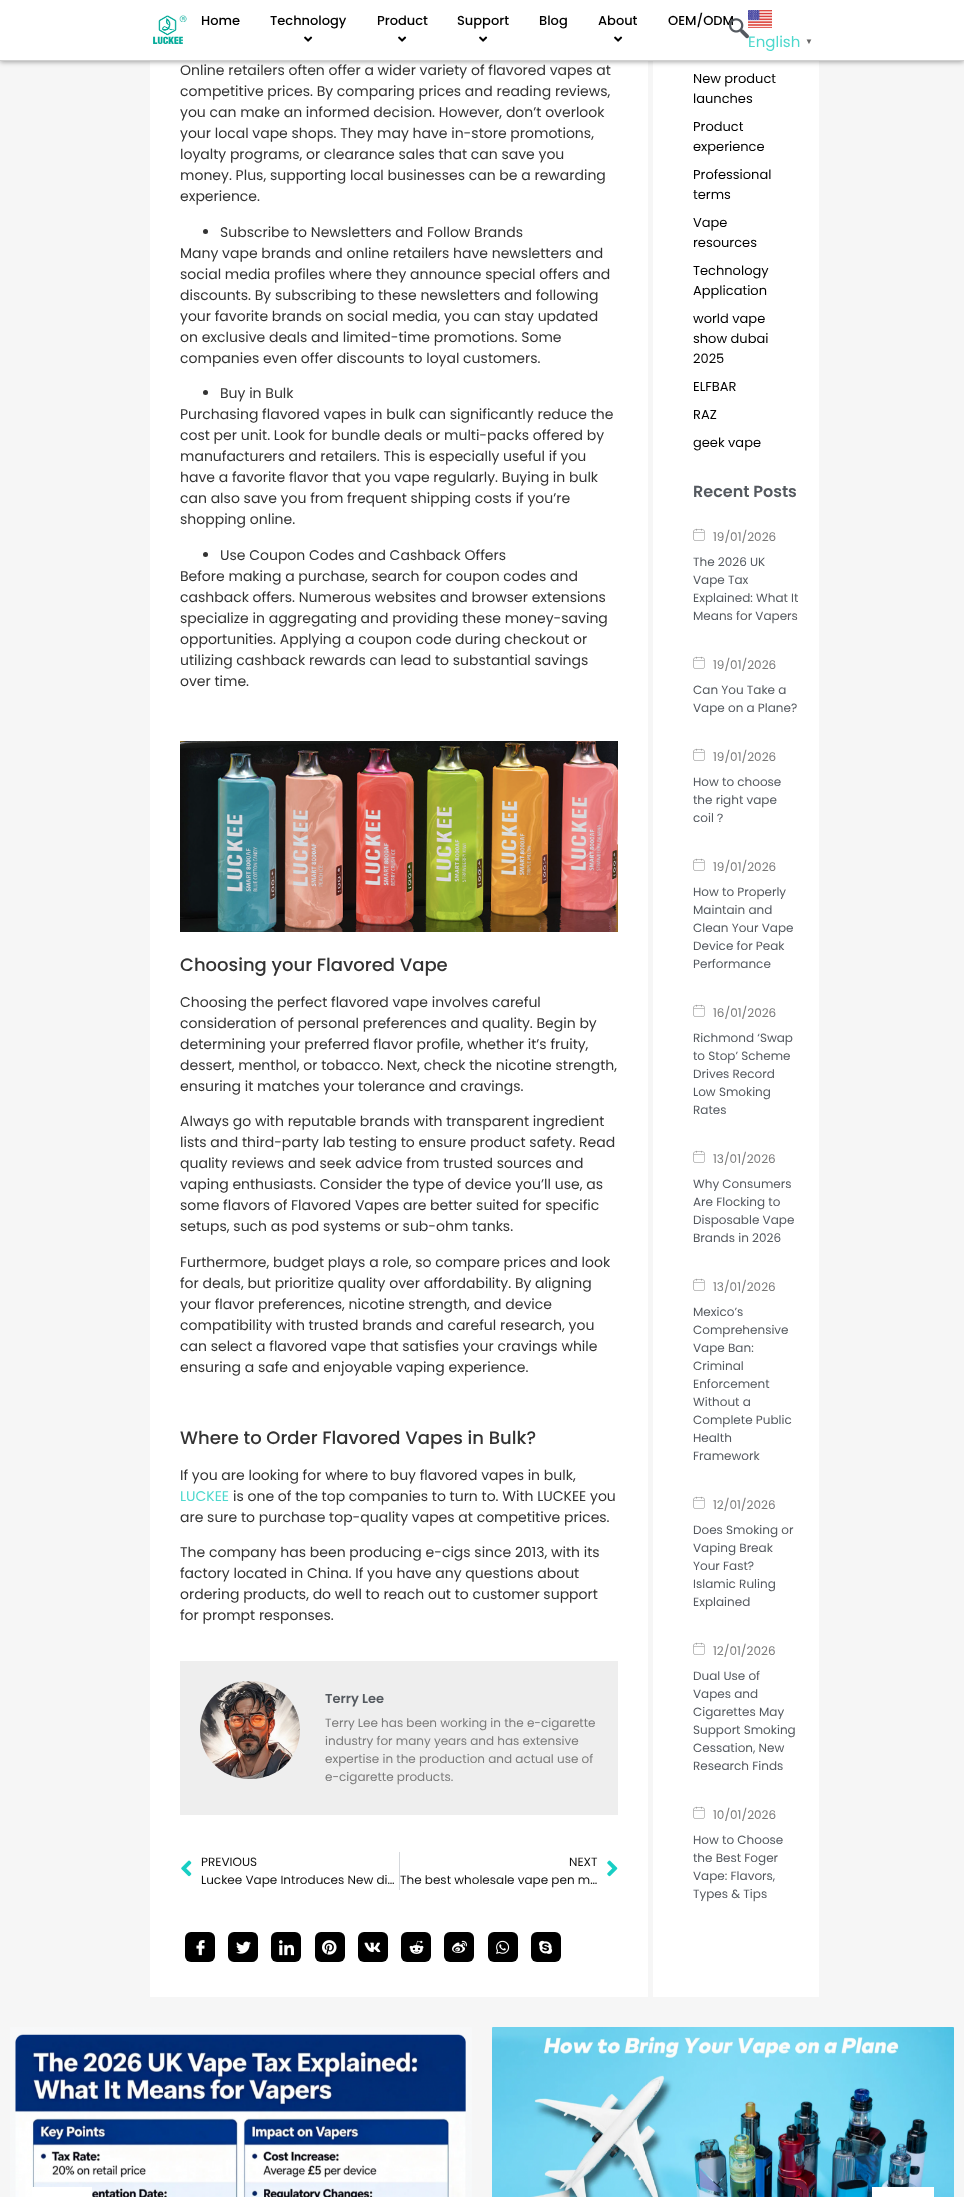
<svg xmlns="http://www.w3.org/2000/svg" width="964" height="2197">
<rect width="100%" height="100%" fill="#f6f6f6"/>
<rect x="150" y="61" width="498" height="1936" fill="#fff"/>
<rect x="653" y="61" width="166" height="1936" fill="#fff"/>
<rect y="1" width="964" height="61" fill="#00000059" filter="blur(2.5px)"/>
<rect width="964" height="60" fill="#fff"/>
<rect y="60" width="964" height="1" fill="#cfcfcf"/>
<image x="153" y="15" width="34" height="29" href="media/1.png"/>
<text x="201" y="25" style="font-family:Poppins;font-size:13px;font-weight:500;fill:#000">Home</text>
<text x="270" y="25" style="font-family:Poppins;font-size:13px;font-weight:500;fill:#000">Technology</text>
<image x="304" y="36" width="9" height="6" href="media/2.png"/>
<text x="377" y="25" style="font-family:Poppins;font-size:13px;font-weight:500;fill:#000">Product</text>
<image x="398" y="36" width="9" height="6" href="media/2.png"/>
<text x="457" y="25" style="font-family:Poppins;font-size:13px;font-weight:500;fill:#000">Support</text>
<image x="479" y="36" width="9" height="6" href="media/2.png"/>
<text x="539" y="25" style="font-family:Poppins;font-size:13px;font-weight:500;fill:#000">Blog</text>
<text x="598" y="25" style="font-family:Poppins;font-size:13px;font-weight:500;fill:#000">About</text>
<image x="614" y="36" width="9" height="6" href="media/2.png"/>
<text x="668" y="25" style="font-family:Poppins;font-size:13px;font-weight:500;fill:#000">OEM/ODM</text>
<image x="729" y="18" width="20" height="21" href="media/3.png"/>
<image x="748" y="10" width="24" height="18" href="media/4.png"/>
<text x="748" y="47" style="font-family:Poppins;font-size:15px;fill:#4dd8cd">English</text>
<text x="805" y="44" style="font-family:Liberation Sans;font-size:8px;font-weight:bold;fill:#666">▼</text>
<text x="180" y="75" style="font-family:Poppins;font-size:14px;fill:#333">Online retailers often offer a wider variety of flavored vapes at</text>
<text x="180" y="96" style="font-family:Poppins;font-size:14px;fill:#333">competitive prices. By comparing prices and reading reviews,</text>
<text x="180" y="117" style="font-family:Poppins;font-size:14px;fill:#333">you can make an informed decision. However, don’t overlook</text>
<text x="180" y="138" style="font-family:Poppins;font-size:14px;fill:#333">your local vape shops. They may have in-store promotions,</text>
<text x="180" y="159" style="font-family:Poppins;font-size:14px;fill:#333">loyalty programs, or clearance sales that can save you</text>
<text x="180" y="180" style="font-family:Poppins;font-size:14px;fill:#333">money. Plus, supporting local businesses can be a rewarding</text>
<text x="180" y="201" style="font-family:Poppins;font-size:14px;fill:#333">experience.</text>
<circle cx="205.5" cy="231.5" r="2.5" fill="#333"/>
<text x="220" y="237" style="font-family:Poppins;font-size:14px;fill:#333">Subscribe to Newsletters and Follow Brands</text>
<text x="180" y="258" style="font-family:Poppins;font-size:14px;fill:#333">Many vape brands and online retailers have newsletters and</text>
<text x="180" y="279" style="font-family:Poppins;font-size:14px;fill:#333">social media profiles where they announce special offers and</text>
<text x="180" y="300" style="font-family:Poppins;font-size:14px;fill:#333">discounts. By subscribing to these newsletters and following</text>
<text x="180" y="321" style="font-family:Poppins;font-size:14px;fill:#333">your favorite brands on social media, you can stay updated</text>
<text x="180" y="342" style="font-family:Poppins;font-size:14px;fill:#333">on exclusive deals and limited-time promotions. Some</text>
<text x="180" y="363" style="font-family:Poppins;font-size:14px;fill:#333">companies even offer discounts to loyal customers.</text>
<circle cx="205.5" cy="392.5" r="2.5" fill="#333"/>
<text x="220" y="398" style="font-family:Poppins;font-size:14px;fill:#333">Buy in Bulk</text>
<text x="180" y="419" style="font-family:Poppins;font-size:14px;fill:#333">Purchasing flavored vapes in bulk can significantly reduce the</text>
<text x="180" y="440" style="font-family:Poppins;font-size:14px;fill:#333">cost per unit. Look for bundle deals or multi-packs offered by</text>
<text x="180" y="461" style="font-family:Poppins;font-size:14px;fill:#333">manufacturers and retailers. This is especially useful if you</text>
<text x="180" y="482" style="font-family:Poppins;font-size:14px;fill:#333">have a favorite flavor that you vape regularly. Buying in bulk</text>
<text x="180" y="503" style="font-family:Poppins;font-size:14px;fill:#333">can also save you from frequent shipping costs if you’re</text>
<text x="180" y="524" style="font-family:Poppins;font-size:14px;fill:#333">shopping online.</text>
<circle cx="205.5" cy="554.5" r="2.5" fill="#333"/>
<text x="220" y="560" style="font-family:Poppins;font-size:14px;fill:#333">Use Coupon Codes and Cashback Offers</text>
<text x="180" y="581" style="font-family:Poppins;font-size:14px;fill:#333">Before making a purchase, search for coupon codes and</text>
<text x="180" y="602" style="font-family:Poppins;font-size:14px;fill:#333">cashback offers. Numerous websites and browser extensions</text>
<text x="180" y="623" style="font-family:Poppins;font-size:14px;fill:#333">specialize in aggregating and providing these money-saving</text>
<text x="180" y="644" style="font-family:Poppins;font-size:14px;fill:#333">opportunities. Applying a coupon code during checkout or</text>
<text x="180" y="665" style="font-family:Poppins;font-size:14px;fill:#333">utilizing cashback rewards can lead to substantial savings</text>
<text x="180" y="686" style="font-family:Poppins;font-size:14px;fill:#333">over time.</text>
<image x="180" y="741" width="438" height="191" href="media/5.png"/>
<text x="180" y="971" style="font-family:Poppins;font-size:18px;font-weight:500;fill:#333">Choosing your Flavored Vape</text>
<text x="180" y="1007" style="font-family:Poppins;font-size:14px;fill:#333">Choosing the perfect flavored vape involves careful</text>
<text x="180" y="1028" style="font-family:Poppins;font-size:14px;fill:#333">consideration of personal preferences and quality. Begin by</text>
<text x="180" y="1049" style="font-family:Poppins;font-size:14px;fill:#333">determining your preferred flavor profile, whether it’s fruity,</text>
<text x="180" y="1070" style="font-family:Poppins;font-size:14px;fill:#333">dessert, menthol, or tobacco. Next, check the nicotine strength,</text>
<text x="180" y="1091" style="font-family:Poppins;font-size:14px;fill:#333">ensuring it matches your tolerance and cravings.</text>
<text x="180" y="1126" style="font-family:Poppins;font-size:14px;fill:#333">Always go with reputable brands with transparent ingredient</text>
<text x="180" y="1147" style="font-family:Poppins;font-size:14px;fill:#333">lists and third-party lab testing to ensure product safety. Read</text>
<text x="180" y="1168" style="font-family:Poppins;font-size:14px;fill:#333">quality reviews and seek advice from trusted sources and</text>
<text x="180" y="1189" style="font-family:Poppins;font-size:14px;fill:#333">vaping enthusiasts. Consider the type of device you’ll use, as</text>
<text x="180" y="1210" style="font-family:Poppins;font-size:14px;fill:#333">some flavors of Flavored Vapes are better suited for specific</text>
<text x="180" y="1231" style="font-family:Poppins;font-size:14px;fill:#333">setups, such as pod systems or sub-ohm tanks.</text>
<text x="180" y="1267" style="font-family:Poppins;font-size:14px;fill:#333">Furthermore, budget plays a role, so compare prices and look</text>
<text x="180" y="1288" style="font-family:Poppins;font-size:14px;fill:#333">for deals, but prioritize quality over affordability. By aligning</text>
<text x="180" y="1309" style="font-family:Poppins;font-size:14px;fill:#333">your flavor preferences, nicotine strength, and device</text>
<text x="180" y="1330" style="font-family:Poppins;font-size:14px;fill:#333">compatibility with trusted brands and careful research, you</text>
<text x="180" y="1351" style="font-family:Poppins;font-size:14px;fill:#333">can select a flavored vape that satisfies your cravings while</text>
<text x="180" y="1372" style="font-family:Poppins;font-size:14px;fill:#333">ensuring a safe and enjoyable vaping experience.</text>
<text x="180" y="1444" style="font-family:Poppins;font-size:18px;font-weight:500;fill:#333">Where to Order Flavored Vapes in Bulk?</text>
<text x="180" y="1480" style="font-family:Poppins;font-size:14px;fill:#333">If you are looking for where to buy flavored vapes in bulk,</text>
<text x="180" y="1501" style="font-family:Poppins;font-size:14px;fill:#4dd8cd">LUCKEE</text>
<text x="233" y="1501" style="font-family:Poppins;font-size:14px;fill:#333">is one of the top companies to turn to. With LUCKEE you</text>
<text x="180" y="1522" style="font-family:Poppins;font-size:14px;fill:#333">are sure to purchase top-quality vapes at competitive prices.</text>
<text x="180" y="1557" style="font-family:Poppins;font-size:14px;fill:#333">The company has been producing e-cigs since 2013, with its</text>
<text x="180" y="1578" style="font-family:Poppins;font-size:14px;fill:#333">factory located in China. If you have any questions about</text>
<text x="180" y="1599" style="font-family:Poppins;font-size:14px;fill:#333">ordering products, do well to reach out to customer support</text>
<text x="180" y="1620" style="font-family:Poppins;font-size:14px;fill:#333">for prompt responses.</text>
<rect x="180" y="1661" width="438" height="154" fill="#eee"/>
<image x="200" y="1681" width="100" height="98" href="media/6.png"/>
<text x="325" y="1703" style="font-family:Poppins;font-size:13px;font-weight:600;fill:#54595f">Terry Lee</text>
<text x="325" y="1727" style="font-family:Poppins;font-size:12px;fill:#7a7a7a">Terry Lee has been working in the e-cigarette</text>
<text x="325" y="1745" style="font-family:Poppins;font-size:12px;fill:#7a7a7a">industry for many years and has extensive</text>
<text x="325" y="1763" style="font-family:Poppins;font-size:12px;fill:#7a7a7a">expertise in the production and actual use of</text>
<text x="325" y="1781" style="font-family:Poppins;font-size:12px;fill:#7a7a7a">e-cigarette products.</text>
<image x="181" y="1860" width="11" height="17" href="media/7.png"/>
<text x="201" y="1866" style="font-family:Poppins;font-size:12px;fill:#111">PREVIOUS</text>
<text x="201" y="1884" style="font-family:Poppins;font-size:12px;fill:#111">Luckee Vape Introduces New di…</text>
<rect x="399" y="1852" width="1" height="38" fill="#d5d8dc"/>
<text x="569" y="1866" style="font-family:Poppins;font-size:12px;fill:#111">NEXT</text>
<text x="400" y="1884" style="font-family:Poppins;font-size:12px;fill:#111">The best wholesale vape pen m…</text>
<image x="607" y="1860" width="11" height="17" href="media/8.png"/>
<rect x="185" y="1932" width="30" height="30" rx="6" fill="#000"/>
<image x="196" y="1940" width="9" height="16" href="media/9.png"/>
<rect x="228" y="1932" width="30" height="30" rx="6" fill="#000"/>
<image x="236" y="1941" width="15" height="13" href="media/10.png"/>
<rect x="271" y="1932" width="30" height="30" rx="6" fill="#000"/>
<image x="279" y="1940" width="15" height="16" href="media/11.png"/>
<rect x="315" y="1932" width="30" height="30" rx="6" fill="#000"/>
<image x="322" y="1940" width="15" height="15" href="media/12.png"/>
<rect x="358" y="1932" width="30" height="30" rx="6" fill="#000"/>
<image x="364" y="1942" width="17" height="11" href="media/13.png"/>
<rect x="401" y="1932" width="30" height="30" rx="6" fill="#000"/>
<image x="409" y="1940" width="15" height="14" href="media/14.png"/>
<rect x="444" y="1932" width="30" height="30" rx="6" fill="#000"/>
<image x="452" y="1940" width="15" height="13" href="media/15.png"/>
<rect x="488" y="1932" width="30" height="30" rx="6" fill="#000"/>
<image x="496" y="1940" width="14" height="14" href="media/16.png"/>
<rect x="531" y="1932" width="30" height="30" rx="6" fill="#000"/>
<image x="539" y="1940" width="14" height="14" href="media/17.png"/>
<text x="693" y="83" style="font-family:Poppins;font-size:13px;fill:#000">New product</text>
<text x="693" y="103" style="font-family:Poppins;font-size:13px;fill:#000">launches</text>
<text x="693" y="131" style="font-family:Poppins;font-size:13px;fill:#000">Product</text>
<text x="693" y="151" style="font-family:Poppins;font-size:13px;fill:#000">experience</text>
<text x="693" y="179" style="font-family:Poppins;font-size:13px;fill:#000">Professional</text>
<text x="693" y="199" style="font-family:Poppins;font-size:13px;fill:#000">terms</text>
<text x="693" y="227" style="font-family:Poppins;font-size:13px;fill:#000">Vape</text>
<text x="693" y="247" style="font-family:Poppins;font-size:13px;fill:#000">resources</text>
<text x="693" y="275" style="font-family:Poppins;font-size:13px;fill:#000">Technology</text>
<text x="693" y="295" style="font-family:Poppins;font-size:13px;fill:#000">Application</text>
<text x="693" y="323" style="font-family:Poppins;font-size:13px;fill:#000">world vape</text>
<text x="693" y="343" style="font-family:Poppins;font-size:13px;fill:#000">show dubai</text>
<text x="693" y="363" style="font-family:Poppins;font-size:13px;fill:#000">2025</text>
<text x="693" y="391" style="font-family:Poppins;font-size:13px;fill:#000">ELFBAR</text>
<text x="693" y="419" style="font-family:Poppins;font-size:13px;fill:#000">RAZ</text>
<text x="693" y="447" style="font-family:Poppins;font-size:13px;fill:#000">geek vape</text>
<text x="693" y="497" style="font-family:Poppins;font-size:16px;font-weight:600;fill:#54595f">Recent Posts</text>
<image x="693" y="528" width="12" height="13" href="media/18.png"/>
<text x="713" y="541" style="font-family:Poppins;font-size:12px;fill:#7a7a7a">19/01/2026</text>
<text x="693" y="566" style="font-family:Poppins;font-size:12px;fill:#54595f">The 2026 UK</text>
<text x="693" y="584" style="font-family:Poppins;font-size:12px;fill:#54595f">Vape Tax</text>
<text x="693" y="602" style="font-family:Poppins;font-size:12px;fill:#54595f">Explained: What It</text>
<text x="693" y="620" style="font-family:Poppins;font-size:12px;fill:#54595f">Means for Vapers</text>
<image x="693" y="656" width="12" height="13" href="media/18.png"/>
<text x="713" y="669" style="font-family:Poppins;font-size:12px;fill:#7a7a7a">19/01/2026</text>
<text x="693" y="694" style="font-family:Poppins;font-size:12px;fill:#54595f">Can You Take a</text>
<text x="693" y="712" style="font-family:Poppins;font-size:12px;fill:#54595f">Vape on a Plane?</text>
<image x="693" y="748" width="12" height="13" href="media/18.png"/>
<text x="713" y="761" style="font-family:Poppins;font-size:12px;fill:#7a7a7a">19/01/2026</text>
<text x="693" y="786" style="font-family:Poppins;font-size:12px;fill:#54595f">How to choose</text>
<text x="693" y="804" style="font-family:Poppins;font-size:12px;fill:#54595f">the right vape</text>
<text x="693" y="822" style="font-family:Poppins;font-size:12px;fill:#54595f">coil</text>
<text x="714" y="822" style="font-family:WenQuanYi Zen Hei;font-size:12px;font-weight:500;fill:#54595f">？</text>
<image x="693" y="858" width="12" height="13" href="media/18.png"/>
<text x="713" y="871" style="font-family:Poppins;font-size:12px;fill:#7a7a7a">19/01/2026</text>
<text x="693" y="896" style="font-family:Poppins;font-size:12px;fill:#54595f">How to Properly</text>
<text x="693" y="914" style="font-family:Poppins;font-size:12px;fill:#54595f">Maintain and</text>
<text x="693" y="932" style="font-family:Poppins;font-size:12px;fill:#54595f">Clean Your Vape</text>
<text x="693" y="950" style="font-family:Poppins;font-size:12px;fill:#54595f">Device for Peak</text>
<text x="693" y="968" style="font-family:Poppins;font-size:12px;fill:#54595f">Performance</text>
<image x="693" y="1004" width="12" height="13" href="media/18.png"/>
<text x="713" y="1017" style="font-family:Poppins;font-size:12px;fill:#7a7a7a">16/01/2026</text>
<text x="693" y="1042" style="font-family:Poppins;font-size:12px;fill:#54595f">Richmond ‘Swap</text>
<text x="693" y="1060" style="font-family:Poppins;font-size:12px;fill:#54595f">to Stop’ Scheme</text>
<text x="693" y="1078" style="font-family:Poppins;font-size:12px;fill:#54595f">Drives Record</text>
<text x="693" y="1096" style="font-family:Poppins;font-size:12px;fill:#54595f">Low Smoking</text>
<text x="693" y="1114" style="font-family:Poppins;font-size:12px;fill:#54595f">Rates</text>
<image x="693" y="1150" width="12" height="13" href="media/18.png"/>
<text x="713" y="1163" style="font-family:Poppins;font-size:12px;fill:#7a7a7a">13/01/2026</text>
<text x="693" y="1188" style="font-family:Poppins;font-size:12px;fill:#54595f">Why Consumers</text>
<text x="693" y="1206" style="font-family:Poppins;font-size:12px;fill:#54595f">Are Flocking to</text>
<text x="693" y="1224" style="font-family:Poppins;font-size:12px;fill:#54595f">Disposable Vape</text>
<text x="693" y="1242" style="font-family:Poppins;font-size:12px;fill:#54595f">Brands in 2026</text>
<image x="693" y="1278" width="12" height="13" href="media/18.png"/>
<text x="713" y="1291" style="font-family:Poppins;font-size:12px;fill:#7a7a7a">13/01/2026</text>
<text x="693" y="1316" style="font-family:Poppins;font-size:12px;fill:#54595f">Mexico’s</text>
<text x="693" y="1334" style="font-family:Poppins;font-size:12px;fill:#54595f">Comprehensive</text>
<text x="693" y="1352" style="font-family:Poppins;font-size:12px;fill:#54595f">Vape Ban:</text>
<text x="693" y="1370" style="font-family:Poppins;font-size:12px;fill:#54595f">Criminal</text>
<text x="693" y="1388" style="font-family:Poppins;font-size:12px;fill:#54595f">Enforcement</text>
<text x="693" y="1406" style="font-family:Poppins;font-size:12px;fill:#54595f">Without a</text>
<text x="693" y="1424" style="font-family:Poppins;font-size:12px;fill:#54595f">Complete Public</text>
<text x="693" y="1442" style="font-family:Poppins;font-size:12px;fill:#54595f">Health</text>
<text x="693" y="1460" style="font-family:Poppins;font-size:12px;fill:#54595f">Framework</text>
<image x="693" y="1496" width="12" height="13" href="media/18.png"/>
<text x="713" y="1509" style="font-family:Poppins;font-size:12px;fill:#7a7a7a">12/01/2026</text>
<text x="693" y="1534" style="font-family:Poppins;font-size:12px;fill:#54595f">Does Smoking or</text>
<text x="693" y="1552" style="font-family:Poppins;font-size:12px;fill:#54595f">Vaping Break</text>
<text x="693" y="1570" style="font-family:Poppins;font-size:12px;fill:#54595f">Your Fast?</text>
<text x="693" y="1588" style="font-family:Poppins;font-size:12px;fill:#54595f">Islamic Ruling</text>
<text x="693" y="1606" style="font-family:Poppins;font-size:12px;fill:#54595f">Explained</text>
<image x="693" y="1642" width="12" height="13" href="media/18.png"/>
<text x="713" y="1655" style="font-family:Poppins;font-size:12px;fill:#7a7a7a">12/01/2026</text>
<text x="693" y="1680" style="font-family:Poppins;font-size:12px;fill:#54595f">Dual Use of</text>
<text x="693" y="1698" style="font-family:Poppins;font-size:12px;fill:#54595f">Vapes and</text>
<text x="693" y="1716" style="font-family:Poppins;font-size:12px;fill:#54595f">Cigarettes May</text>
<text x="693" y="1734" style="font-family:Poppins;font-size:12px;fill:#54595f">Support Smoking</text>
<text x="693" y="1752" style="font-family:Poppins;font-size:12px;fill:#54595f">Cessation, New</text>
<text x="693" y="1770" style="font-family:Poppins;font-size:12px;fill:#54595f">Research Finds</text>
<image x="693" y="1806" width="12" height="13" href="media/18.png"/>
<text x="713" y="1819" style="font-family:Poppins;font-size:12px;fill:#7a7a7a">10/01/2026</text>
<text x="693" y="1844" style="font-family:Poppins;font-size:12px;fill:#54595f">How to Choose</text>
<text x="693" y="1862" style="font-family:Poppins;font-size:12px;fill:#54595f">the Best Foger</text>
<text x="693" y="1880" style="font-family:Poppins;font-size:12px;fill:#54595f">Vape: Flavors,</text>
<text x="693" y="1898" style="font-family:Poppins;font-size:12px;fill:#54595f">Types &amp; Tips</text>
<image x="10" y="2027" width="462" height="170" href="media/19.png"/>
<image x="492" y="2027" width="462" height="170" href="media/20.png"/>
<rect x="32" y="2187" width="60" height="10" fill="#fff"/>
<rect x="872" y="2187" width="62" height="10" fill="#fff"/>
</svg>
